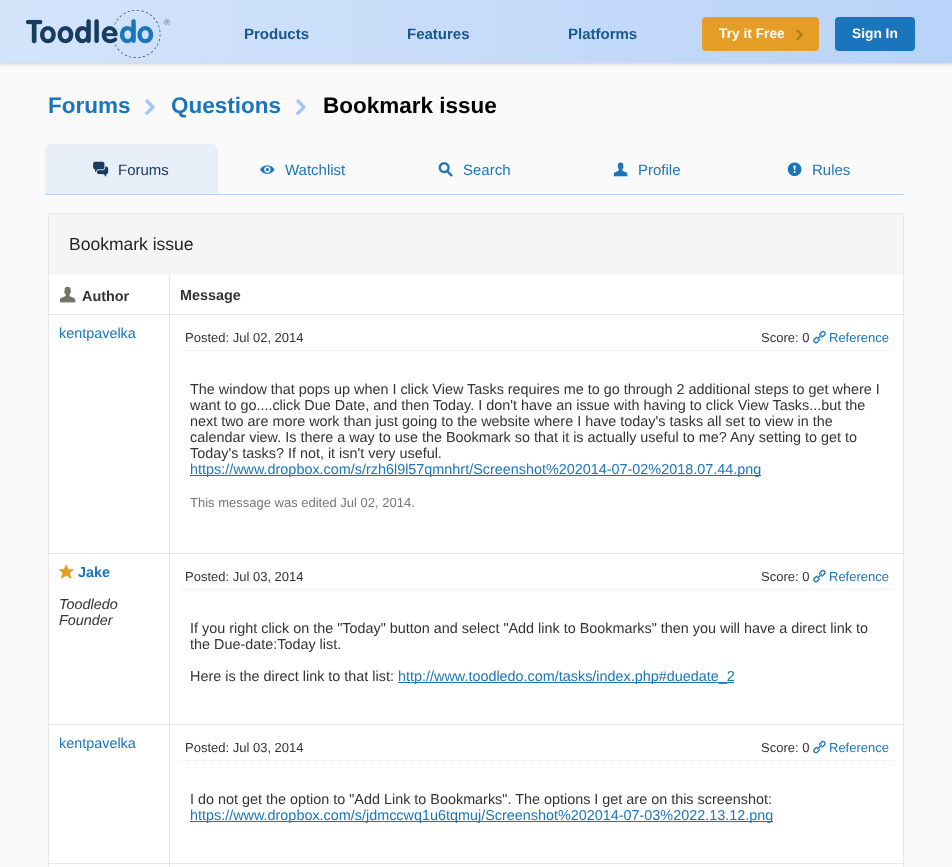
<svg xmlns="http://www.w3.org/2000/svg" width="952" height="867">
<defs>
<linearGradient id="g1" gradientUnits="userSpaceOnUse" x1="0" y1="32" x2="952" y2="31"><stop offset="0" stop-color="#d4e4fb"/><stop offset="1" stop-color="#b9d3f8"/></linearGradient>
</defs>
<rect width="100%" height="100%" fill="#fafafa"/>
<rect width="952" height="63" fill="#33333359" filter="blur(2.5px)"/>
<rect width="952" height="63" fill="url(#g1)"/>
<image x="26" y="10" width="144" height="48" href="media/1.png"/>
<text x="244" y="39" style="font-family:Liberation Sans;font-size:15px;font-weight:bold;fill:#18588e">Products</text>
<text x="407" y="39" style="font-family:Liberation Sans;font-size:15px;font-weight:bold;fill:#18588e">Features</text>
<text x="568" y="39" style="font-family:Liberation Sans;font-size:15px;font-weight:bold;fill:#18588e">Platforms</text>
<rect x="702" y="17" width="117" height="34" rx="4" fill="#e49e26"/>
<text x="719" y="38" style="font-family:Liberation Sans;font-size:13.75px;font-weight:bold;fill:#fff">Try it Free</text>
<image x="796" y="29" width="7" height="12" href="media/2.png"/>
<rect x="835" y="17" width="80" height="34" rx="4" fill="#1b75bc"/>
<text x="852" y="38" style="font-family:Liberation Sans;font-size:13.75px;font-weight:bold;fill:#fff">Sign In</text>
<text x="48" y="113" style="font-family:Liberation Sans;font-size:22.5px;font-weight:bold;fill:#1b75bc">Forums</text>
<image x="145" y="99" width="10" height="16" href="media/3.png"/>
<text x="171" y="113" style="font-family:Liberation Sans;font-size:22.5px;font-weight:bold;fill:#1b75bc">Questions</text>
<image x="296" y="99" width="10" height="16" href="media/3.png"/>
<text x="323" y="113" style="font-family:Liberation Sans;font-size:22.5px;font-weight:bold;fill:#000">Bookmark issue</text>
<path d="M52 144h159c4 0 7 3 7 7v44h-173v-44c0-4 3-7 7-7z" fill="#e9eff9"/>
<path d="M218 195l-1-1h-171l-1 1z" fill="#b9d3f8"/>
<image x="93" y="161" width="16" height="16" href="media/4.png"/>
<text x="118" y="175" style="font-family:Liberation Sans;font-size:15px;fill:#173c60">Forums</text>
<path d="M390 195h-174l1-1h172z" fill="#b9d3f8"/>
<image x="260" y="165" width="15" height="9" href="media/5.png"/>
<text x="285" y="175" style="font-family:Liberation Sans;font-size:15px;fill:#1b75bc">Watchlist</text>
<path d="M562 195h-174l1-1h172z" fill="#b9d3f8"/>
<image x="438" y="162" width="15" height="15" href="media/6.png"/>
<text x="463" y="175" style="font-family:Liberation Sans;font-size:15px;fill:#1b75bc">Search</text>
<path d="M733 195h-173l1-1h171z" fill="#b9d3f8"/>
<image x="613" y="162" width="15" height="15" href="media/7.png"/>
<text x="638" y="175" style="font-family:Liberation Sans;font-size:15px;fill:#1b75bc">Profile</text>
<path d="M905 195h-173l1-1h171z" fill="#b9d3f8"/>
<image x="787" y="162" width="15" height="15" href="media/8.png"/>
<text x="812" y="175" style="font-family:Liberation Sans;font-size:15px;fill:#1b75bc">Rules</text>
<rect x="49" y="315" width="854" height="548" fill="#fff"/>
<rect x="48.5" y="213.5" width="855" height="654" fill="none" stroke="#e4e6e9"/>
<rect x="49" y="214" width="854" height="61" fill="#f5f5f3"/>
<text x="69" y="250" style="font-family:Liberation Sans;font-size:17.5px;fill:#222">Bookmark issue</text>
<rect x="49" y="864" width="854" height="3" fill="#fdfdfd"/>
<rect x="48" y="314" width="856" height="1" fill="#e4e6e9"/>
<rect x="48" y="553" width="856" height="1" fill="#e4e6e9"/>
<rect x="48" y="724" width="856" height="1" fill="#e4e6e9"/>
<rect x="48" y="863" width="856" height="1" fill="#e4e6e9"/>
<rect x="169" y="275" width="1" height="592" fill="#e4e6e9"/>
<rect x="49" y="275" width="120" height="39" fill="#fff"/>
<image x="60" y="286" width="16" height="17" href="media/9.png"/>
<text x="82" y="301" style="font-family:Liberation Sans;font-size:14.4px;font-weight:bold;fill:#333">Author</text>
<rect x="170" y="275" width="733" height="39" fill="#fff"/>
<text x="180" y="300" style="font-family:Liberation Sans;font-size:14.4px;font-weight:bold;fill:#333">Message</text>
<text x="59" y="338" style="font-family:Liberation Sans;font-size:14.4px;fill:#1b75bc">kentpavelka</text>
<path d="M180 350.5h713" fill="none" stroke="#e4e6e9" stroke-dasharray="1 1"/>
<text x="185" y="342" style="font-family:Liberation Sans;font-size:13px;fill:#333">Posted: Jul 02, 2014</text>
<text x="761" y="342" style="font-family:Liberation Sans;font-size:13px;fill:#333">Score: 0</text>
<image x="813" y="330" width="13" height="14" href="media/10.png"/>
<text x="829" y="342" style="font-family:Liberation Sans;font-size:13px;fill:#1b75bc">Reference</text>
<text x="190" y="394" style="font-family:Liberation Sans;font-size:14.4px;fill:#333">The window that pops up when I click View Tasks requires me to go through 2 additional steps to get where I</text>
<text x="190" y="410" style="font-family:Liberation Sans;font-size:14.4px;fill:#333">want to go....click Due Date, and then Today. I don't have an issue with having to click View Tasks...but the</text>
<text x="190" y="426" style="font-family:Liberation Sans;font-size:14.4px;fill:#333">next two are more work than just going to the website where I have today's tasks all set to view in the</text>
<text x="190" y="442" style="font-family:Liberation Sans;font-size:14.4px;fill:#333">calendar view. Is there a way to use the Bookmark so that it is actually useful to me? Any setting to get to</text>
<text x="190" y="458" style="font-family:Liberation Sans;font-size:14.4px;fill:#333">Today's tasks? If not, it isn't very useful.</text>
<rect x="190" y="475" width="571" height="1" fill="#1b75bc"/>
<text x="190" y="474" style="font-family:Liberation Sans;font-size:14.4px;fill:#1b75bc">https://www.dropbox.com/s/rzh6l9l57qmnhrt/Screenshot%202014-07-02%2018.07.44.png</text>
<text x="190" y="507" style="font-family:Liberation Sans;font-size:13px;fill:#777">This message was edited Jul 02, 2014.</text>
<image x="59" y="564" width="15" height="15" href="media/11.png"/>
<text x="78" y="577" style="font-family:Liberation Sans;font-size:14.4px;font-weight:bold;fill:#1b75bc">Jake</text>
<text x="59" y="609" style="font-family:Liberation Sans;font-size:14.4px;font-style:italic;fill:#333">Toodledo</text>
<text x="59" y="625" style="font-family:Liberation Sans;font-size:14.4px;font-style:italic;fill:#333">Founder</text>
<path d="M180 589.5h713" fill="none" stroke="#e4e6e9" stroke-dasharray="1 1"/>
<text x="185" y="581" style="font-family:Liberation Sans;font-size:13px;fill:#333">Posted: Jul 03, 2014</text>
<text x="761" y="581" style="font-family:Liberation Sans;font-size:13px;fill:#333">Score: 0</text>
<image x="813" y="569" width="13" height="14" href="media/12.png"/>
<text x="829" y="581" style="font-family:Liberation Sans;font-size:13px;fill:#1b75bc">Reference</text>
<text x="190" y="633" style="font-family:Liberation Sans;font-size:14.4px;fill:#333">If you right click on the "Today" button and select "Add link to Bookmarks" then you will have a direct link to</text>
<text x="190" y="649" style="font-family:Liberation Sans;font-size:14.4px;fill:#333">the Due-date:Today list.</text>
<text x="190" y="681" style="font-family:Liberation Sans;font-size:14.4px;fill:#333">Here is the direct link to that list:</text>
<rect x="398" y="682" width="336" height="1" fill="#1b75bc"/>
<text x="398" y="681" style="font-family:Liberation Sans;font-size:14.4px;fill:#1b75bc">http://www.toodledo.com/tasks/index.php#duedate_2</text>
<text x="59" y="748" style="font-family:Liberation Sans;font-size:14.4px;fill:#1b75bc">kentpavelka</text>
<path d="M180 760.5h713" fill="none" stroke="#e4e6e9" stroke-dasharray="1 1"/>
<text x="185" y="752" style="font-family:Liberation Sans;font-size:13px;fill:#333">Posted: Jul 03, 2014</text>
<text x="761" y="752" style="font-family:Liberation Sans;font-size:13px;fill:#333">Score: 0</text>
<image x="813" y="740" width="13" height="14" href="media/10.png"/>
<text x="829" y="752" style="font-family:Liberation Sans;font-size:13px;fill:#1b75bc">Reference</text>
<text x="190" y="804" style="font-family:Liberation Sans;font-size:14.4px;fill:#333">I do not get the option to "Add Link to Bookmarks". The options I get are on this screenshot:</text>
<rect x="190" y="821" width="583" height="1" fill="#1b75bc"/>
<text x="190" y="820" style="font-family:Liberation Sans;font-size:14.4px;fill:#1b75bc">https://www.dropbox.com/s/jdmccwq1u6tqmuj/Screenshot%202014-07-03%2022.13.12.png</text>
</svg>
